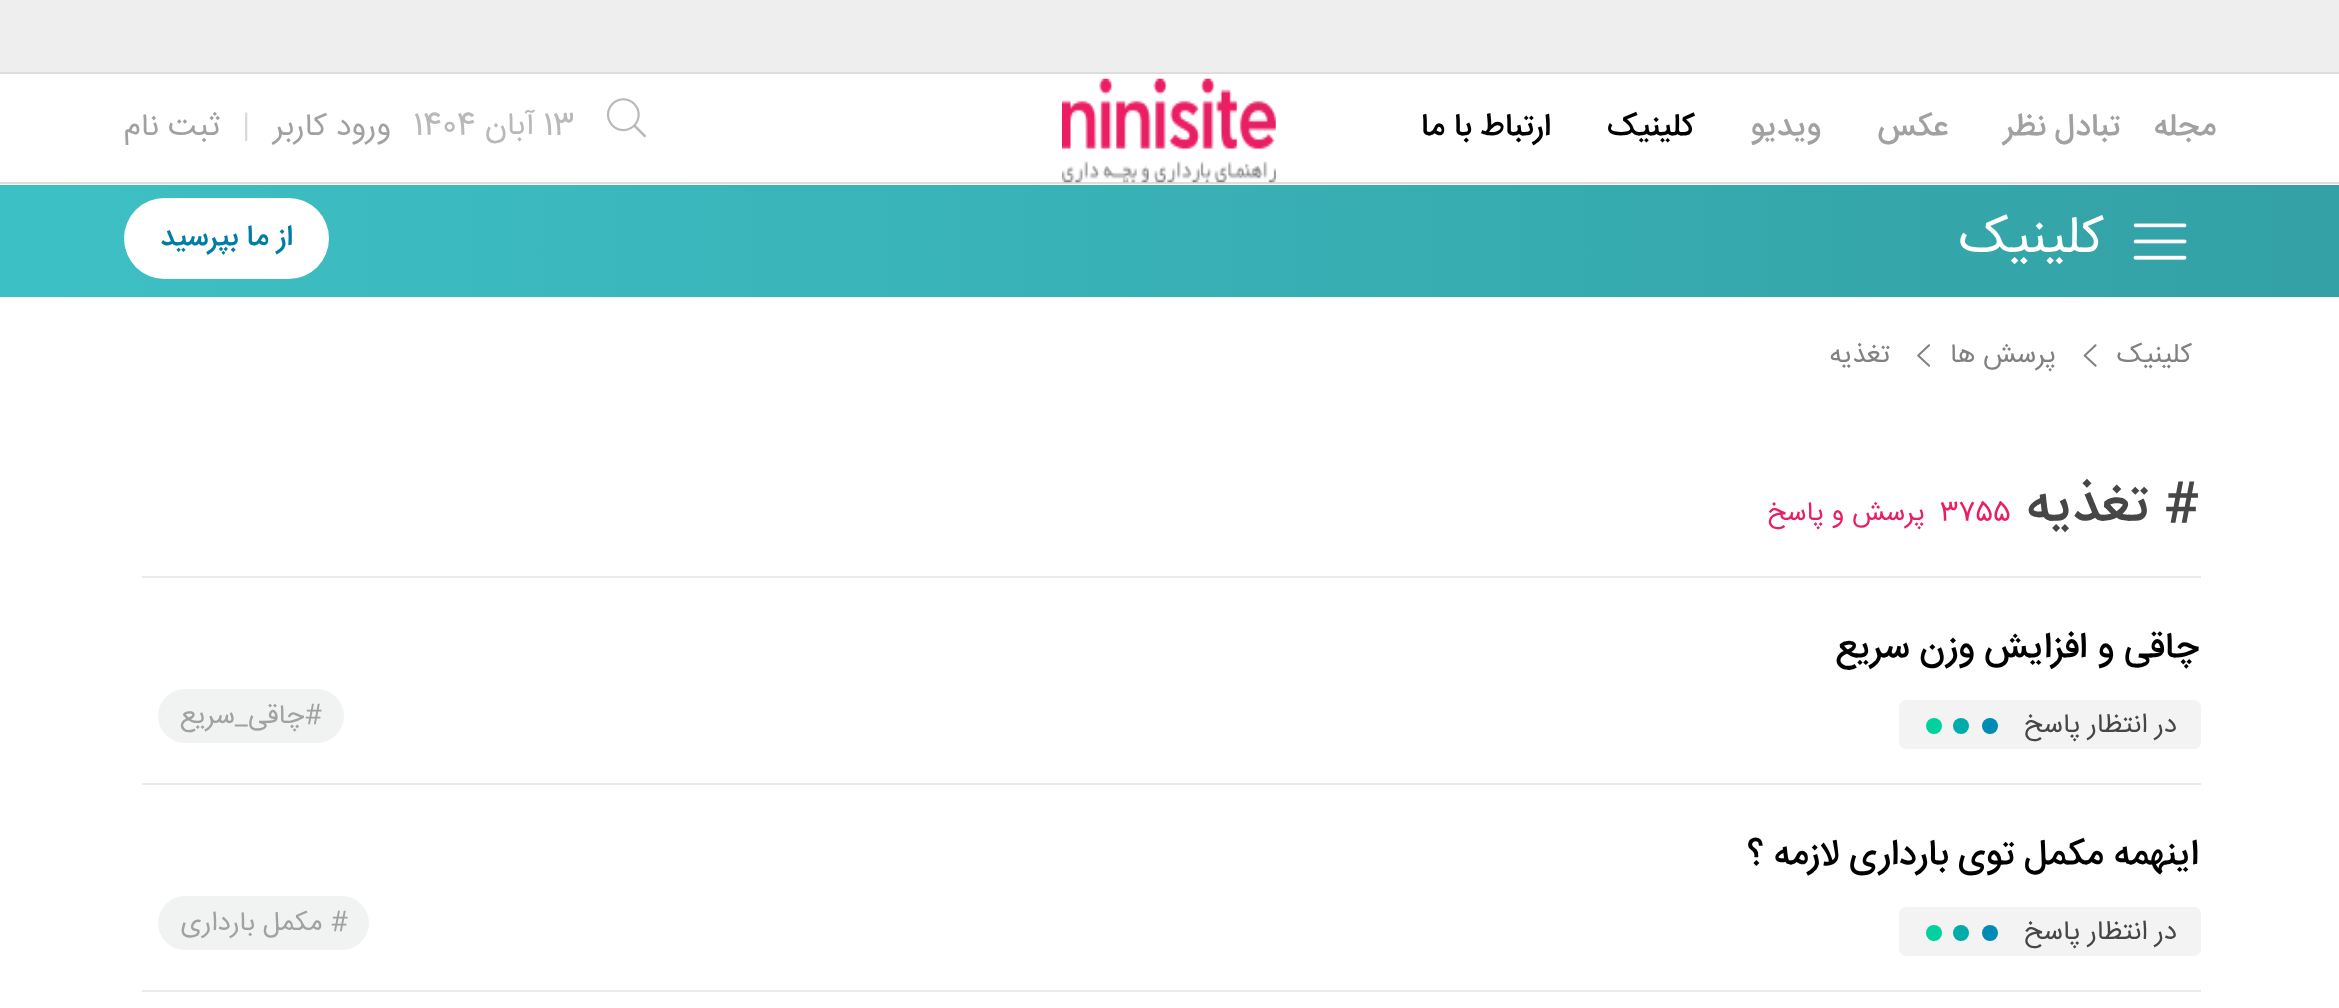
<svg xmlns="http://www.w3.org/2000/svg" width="2339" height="1008">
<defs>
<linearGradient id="g1" gradientUnits="userSpaceOnUse" x1="0" y1="241" x2="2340" y2="241"><stop offset="0" stop-color="#3dc0c5"/><stop offset="1" stop-color="#33a1a5"/></linearGradient>
</defs>
<rect width="100%" height="100%" fill="#fff"/>
<rect width="2339" height="72" fill="#eee"/>
<rect y="72" width="2339" height="2" fill="#ddd"/>
<rect y="182" width="2339" height="2" fill="#ddd"/>
<text x="2216" y="135" style="font-family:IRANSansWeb;font-size:31.5px;font-weight:500;direction:rtl;fill:#a1a1a1">مجله</text>
<text x="2120" y="135" style="font-family:IRANSansWeb;font-size:31.5px;font-weight:500;direction:rtl;fill:#a1a1a1">تبادل نظر</text>
<text x="1948" y="135" style="font-family:IRANSansWeb;font-size:31.5px;font-weight:500;direction:rtl;fill:#a1a1a1">عکس</text>
<text x="1821" y="135" style="font-family:IRANSansWeb;font-size:31.5px;font-weight:500;direction:rtl;fill:#a1a1a1">ویدیو</text>
<text x="1694" y="135" style="font-family:IRANSansWeb;font-size:31.5px;font-weight:500;direction:rtl;fill:#000">کلینیک</text>
<text x="1551" y="135" style="font-family:IRANSansWeb;font-size:31.5px;font-weight:500;direction:rtl;fill:#000">ارتباط با ما</text>
<image x="1062" y="78" width="214" height="105" href="media/1.png"/>
<image x="606" y="98" width="40" height="40" href="media/2.png"/>
<text x="543" y="134" style="font-family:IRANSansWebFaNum;font-size:31.5px;fill:#b9b9b9">13</text>
<text x="535" y="134" style="font-family:IRANSansWebFaNum;font-size:31.5px;direction:rtl;fill:#b9b9b9">آبان</text>
<text x="413" y="134" style="font-family:IRANSansWebFaNum;font-size:31.5px;fill:#b9b9b9">1404</text>
<text x="391" y="135" style="font-family:IRANSansWebFaNum;font-size:31.5px;direction:rtl;fill:#a1a1a1">ورود کاربر</text>
<text x="242" y="135" style="font-family:IRANSansWebFaNum;font-size:31.5px;fill:#dadada">|</text>
<text x="220" y="135" style="font-family:IRANSansWebFaNum;font-size:31.5px;direction:rtl;fill:#a1a1a1">ثبت نام</text>
<rect y="185" width="2339" height="112" fill="url(#g1)"/>
<image x="2133" y="223" width="54" height="37" href="media/3.png"/>
<text x="2104" y="252" style="font-family:IRANSansWebFaNum;font-size:52px;direction:rtl;fill:#fff">کلینیک</text>
<rect x="124" y="198" width="205" height="81" rx="40.5" fill="#fff"/>
<text x="293" y="245" style="font-family:IRANSansWeb;font-size:29.25px;font-weight:500;direction:rtl;fill:#017ea7">از ما بپرسید</text>
<text x="2192" y="362" style="font-family:IRANSansWebFaNum;font-size:27px;direction:rtl;fill:#818181">کلینیک</text>
<image x="2083" y="344" width="14" height="23" href="media/4.png"/>
<text x="2056" y="362" style="font-family:IRANSansWebFaNum;font-size:27px;direction:rtl;fill:#818181">پرسش ها</text>
<image x="1917" y="344" width="14" height="23" href="media/5.png"/>
<text x="1890" y="362" style="font-family:IRANSansWebFaNum;font-size:27px;direction:rtl;fill:#818181">تغذیه</text>
<rect x="142" y="576" width="2059" height="2" fill="#ebebeb"/>
<text x="2199" y="520" style="font-family:IRANSansWeb;font-size:54px;font-weight:500;direction:rtl;fill:#474647"># تغذیه</text>
<text x="1940" y="520" style="font-family:IRANSansWebFaNum;font-size:27px;fill:#e91e63">3755</text>
<text x="1925" y="520" style="font-family:IRANSansWebFaNum;font-size:27px;direction:rtl;fill:#e91e63">پرسش و پاسخ</text>
<rect x="142" y="783" width="2059" height="2" fill="#ebebeb"/>
<text x="2199" y="657" style="font-family:IRANSansWeb;font-size:36px;font-weight:500;direction:rtl;fill:#000">چاقی و افزایش وزن سریع</text>
<rect x="1899" y="700" width="302" height="49" rx="7" fill="#f3f3f3"/>
<text x="2177" y="732" style="font-family:IRANSansWebFaNum;font-size:27px;direction:rtl;fill:#474647">در انتظار پاسخ</text>
<circle cx="1990" cy="726" r="8" fill="#008bb7"/>
<circle cx="1961" cy="726" r="8" fill="#00acaa"/>
<circle cx="1934" cy="726" r="8" fill="#00d19d"/>
<rect x="158" y="689" width="186" height="54" rx="27" fill="#f1f2f2"/>
<text x="322" y="723" style="font-family:IRANSansWebFaNum;font-size:27px;direction:rtl;fill:#a1a1a1">#چاقی_سریع</text>
<rect x="142" y="990" width="2059" height="2" fill="#ebebeb"/>
<text x="2199" y="864" style="font-family:IRANSansWeb;font-size:36px;font-weight:500;direction:rtl;fill:#000">اینهمه مکمل توی بارداری لازمه ؟</text>
<rect x="1899" y="907" width="302" height="49" rx="7" fill="#f3f3f3"/>
<text x="2177" y="939" style="font-family:IRANSansWebFaNum;font-size:27px;direction:rtl;fill:#474647">در انتظار پاسخ</text>
<circle cx="1990" cy="933" r="8" fill="#008bb7"/>
<circle cx="1961" cy="933" r="8" fill="#00acaa"/>
<circle cx="1934" cy="933" r="8" fill="#00d19d"/>
<rect x="158" y="896" width="211" height="54" rx="27" fill="#f1f2f2"/>
<text x="348" y="930" style="font-family:IRANSansWebFaNum;font-size:27px;direction:rtl;fill:#a1a1a1"># مکمل بارداری</text>
</svg>
